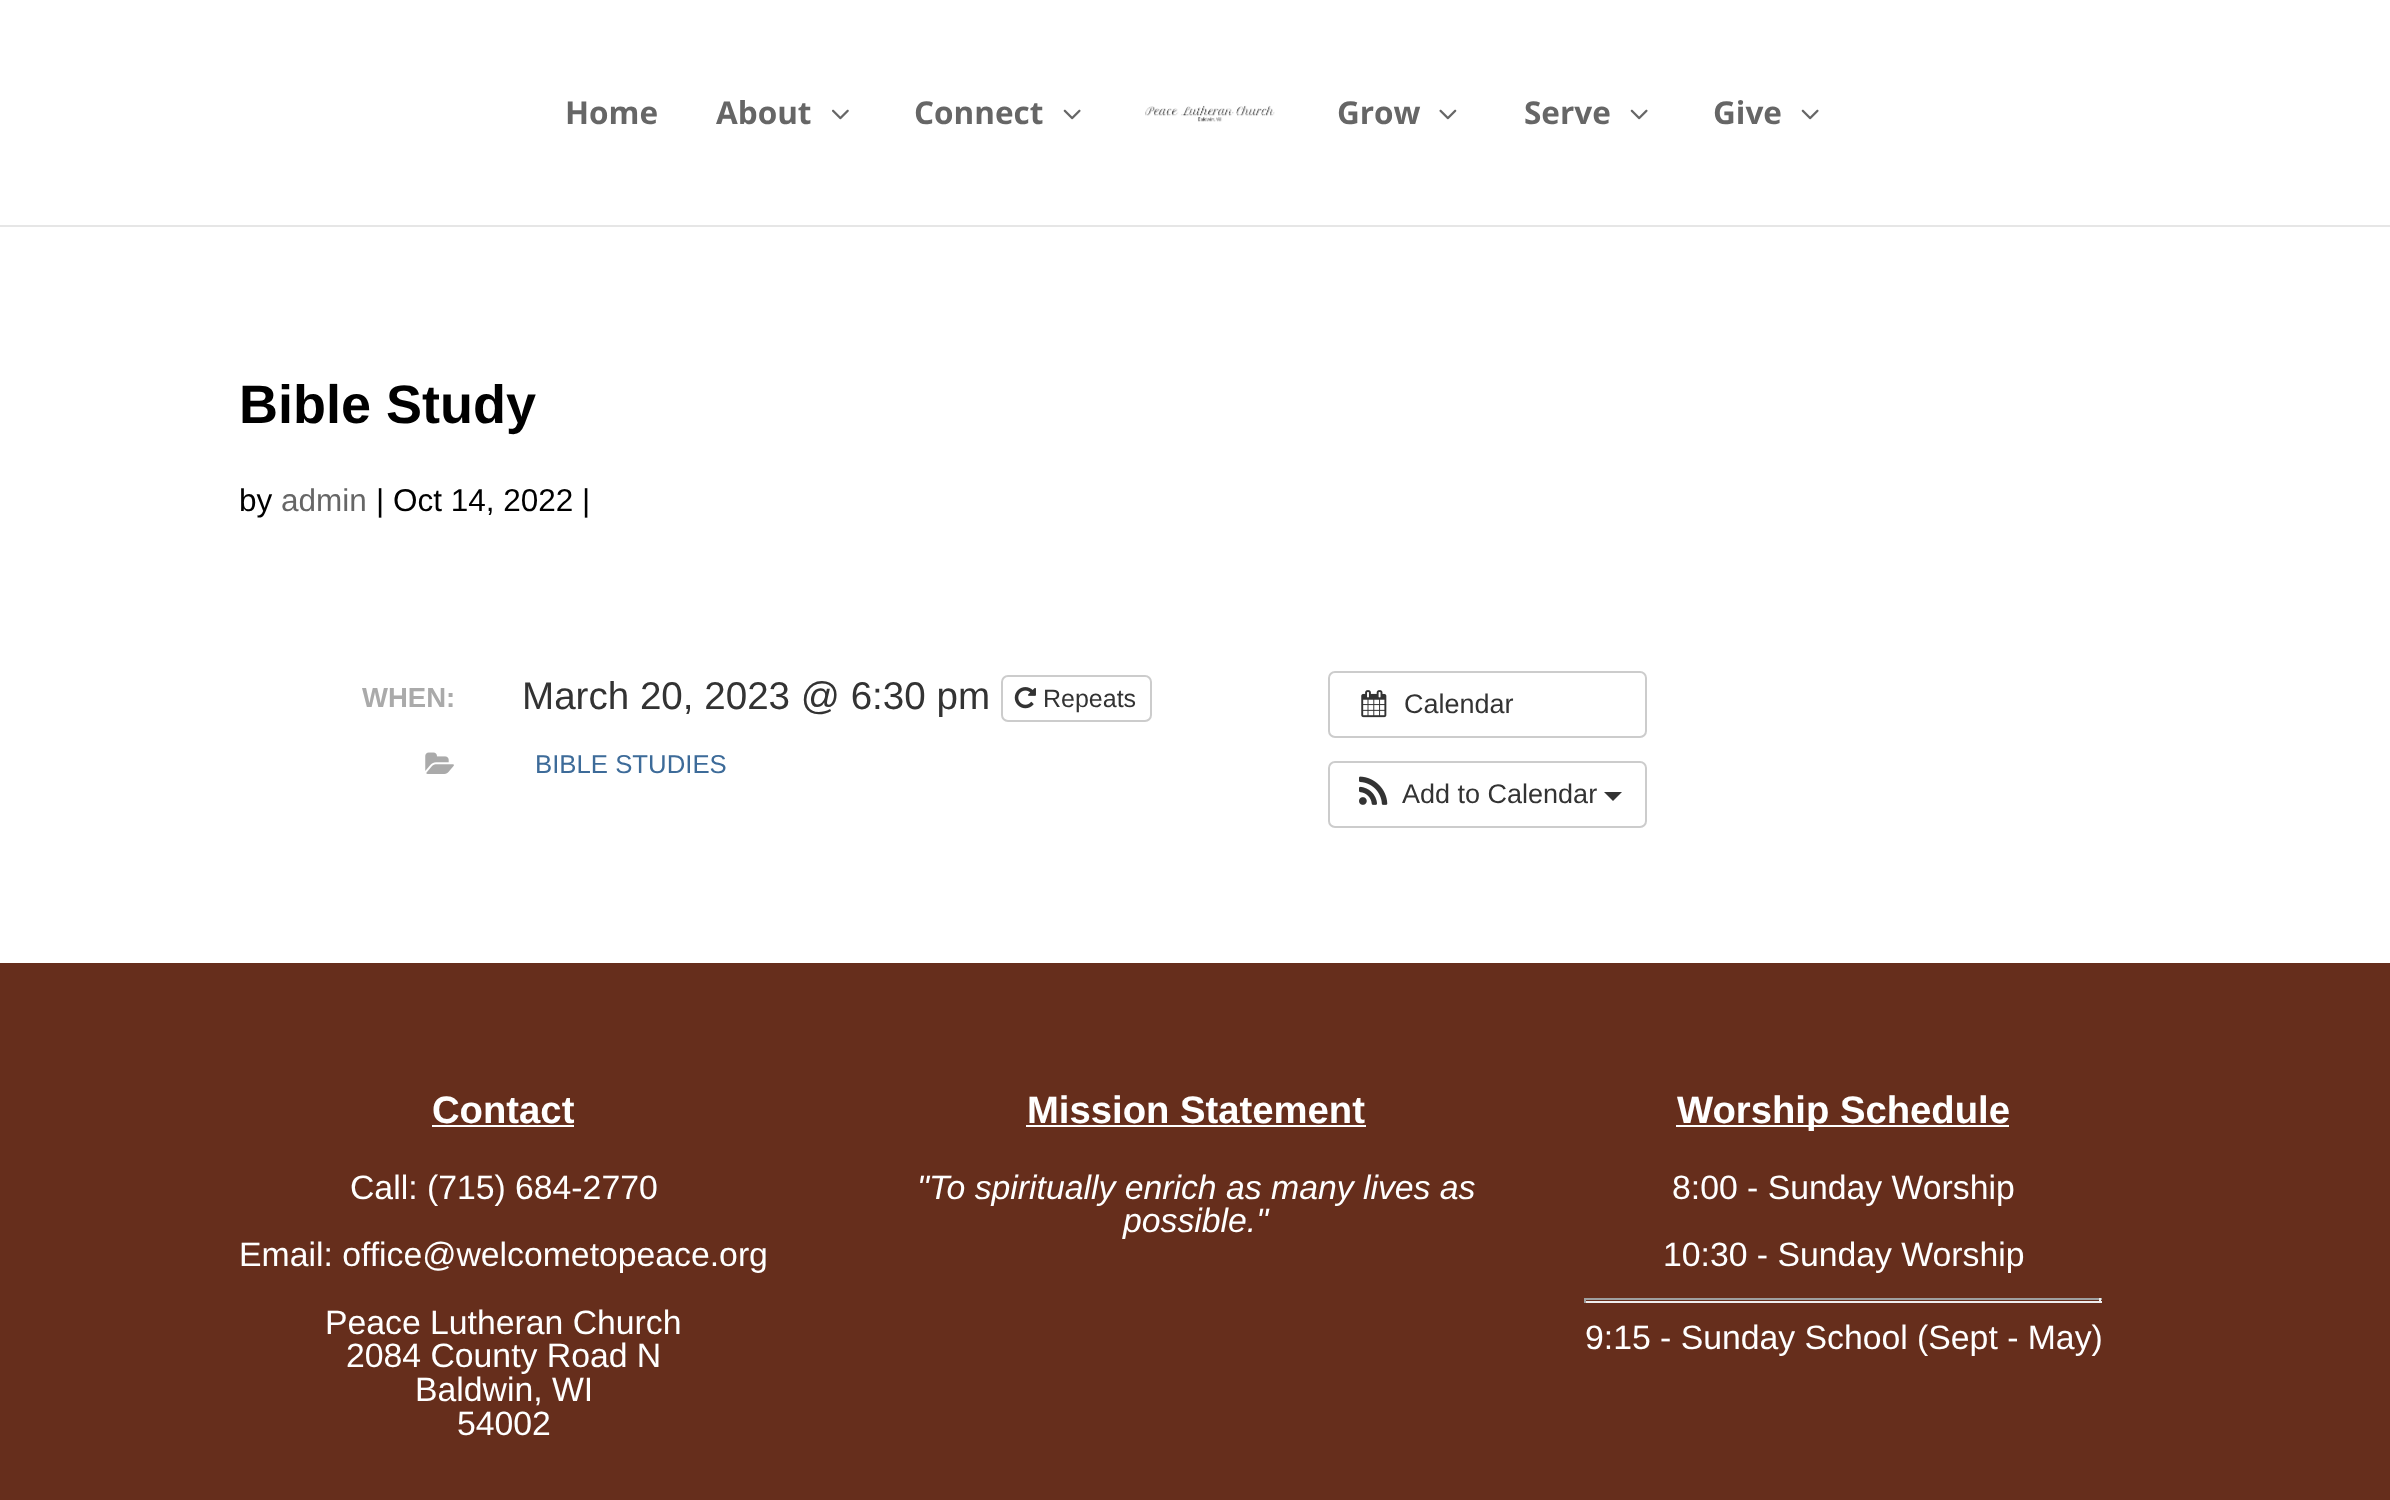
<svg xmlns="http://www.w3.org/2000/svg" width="2390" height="1500">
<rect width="100%" height="100%" fill="#fff"/>
<path d="M0 225v2h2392v-225v223z" fill="#e6e6e6"/>
<text x="565" y="124" style="font-family:Open Sans;font-size:31.5px;font-weight:bold;fill:#666">Home</text>
<text x="716" y="124" style="font-family:Open Sans;font-size:31.5px;font-weight:bold;fill:#666">About</text>
<image x="832" y="109" width="17" height="11" href="media/1.png"/>
<text x="914" y="124" style="font-family:Open Sans;font-size:31.5px;font-weight:bold;fill:#666">Connect</text>
<image x="1063" y="109" width="18" height="11" href="media/2.png"/>
<image x="1145" y="105" width="130" height="17" href="media/3.png"/>
<text x="1337" y="124" style="font-family:Open Sans;font-size:31.5px;font-weight:bold;fill:#666">Grow</text>
<image x="1439" y="109" width="18" height="11" href="media/4.png"/>
<text x="1524" y="124" style="font-family:Open Sans;font-size:31.5px;font-weight:bold;fill:#666">Serve</text>
<image x="1630" y="109" width="18" height="11" href="media/2.png"/>
<text x="1713" y="124" style="font-family:Open Sans;font-size:31.5px;font-weight:bold;fill:#666">Give</text>
<image x="1801" y="109" width="18" height="11" href="media/2.png"/>
<text x="239" y="423" style="font-family:Liberation Sans;font-size:54px;font-weight:bold;fill:#000">Bible Study</text>
<text x="239" y="511" style="font-family:Liberation Sans;font-size:31.5px;fill:#000">by</text>
<text x="281" y="511" style="font-family:Liberation Sans;font-size:31.5px;fill:#666">admin</text>
<text x="376" y="511" style="font-family:Liberation Sans;font-size:31.5px;fill:#000">| Oct 14, 2022 |</text>
<text x="362" y="707" style="font-family:Liberation Sans;font-size:27.5px;font-weight:bold;fill:#aaa">WHEN:</text>
<text x="522" y="709" style="font-family:Liberation Sans;font-size:38.6px;fill:#333">March 20, 2023 @ 6:30 pm</text>
<rect x="1002" y="676" width="149" height="45" rx="6" fill="none" stroke="#ccc" stroke-width="2"/>
<image x="1014" y="687" width="22" height="22" href="media/5.png"/>
<text x="1043" y="707" style="font-family:Liberation Sans;font-size:25px;fill:#333">Repeats</text>
<image x="425" y="752" width="29" height="22" href="media/6.png"/>
<text x="535" y="773" style="font-family:Liberation Sans;font-size:25.75px;fill:#3d6b99">BIBLE STUDIES</text>
<rect x="1329" y="672" width="317" height="65" rx="6" fill="none" stroke="#ccc" stroke-width="2"/>
<image x="1361" y="690" width="26" height="28" href="media/7.png"/>
<text x="1404" y="713" style="font-family:Liberation Sans;font-size:27px;fill:#333">Calendar</text>
<rect x="1329" y="762" width="317" height="65" rx="6" fill="none" stroke="#ccc" stroke-width="2"/>
<image x="1359" y="776" width="29" height="29" href="media/8.png"/>
<text x="1402" y="803" style="font-family:Liberation Sans;font-size:27px;fill:#333">Add to Calendar</text>
<path d="M1604 792h18l-9 9z" fill="#333"/>
<rect y="963" width="2390" height="537" fill="#662e1c"/>
<text x="432" y="1123" style="font-family:Liberation Sans;font-size:38.25px;font-weight:bold;fill:#fff">Contact</text>
<rect x="432" y="1125" width="142" height="2" fill="#fff"/>
<text x="350" y="1199" style="font-family:Liberation Sans;font-size:33.75px;fill:#fff">Call: (715) 684-2770</text>
<text x="239" y="1266" style="font-family:Liberation Sans;font-size:33.75px;fill:#fff">Email: office@welcometopeace.org</text>
<text x="325" y="1334" style="font-family:Liberation Sans;font-size:33.75px;fill:#fff">Peace Lutheran Church</text>
<text x="346" y="1367" style="font-family:Liberation Sans;font-size:33.75px;fill:#fff">2084 County Road N</text>
<text x="415" y="1401" style="font-family:Liberation Sans;font-size:33.75px;fill:#fff">Baldwin, WI</text>
<text x="457" y="1435" style="font-family:Liberation Sans;font-size:33.75px;fill:#fff">54002</text>
<text x="1027" y="1123" style="font-family:Liberation Sans;font-size:38.25px;font-weight:bold;fill:#fff">Mission Statement</text>
<rect x="1026" y="1125" width="340" height="2" fill="#fff"/>
<text x="917" y="1199" style="font-family:Liberation Sans;font-size:33.75px;font-style:italic;fill:#fff">"To spiritually enrich as many lives as</text>
<text x="1123" y="1232" style="font-family:Liberation Sans;font-size:33.75px;font-style:italic;fill:#fff">possible."</text>
<rect x="1676" y="1125" width="333" height="2" fill="#fff"/>
<text x="1677" y="1123" style="font-family:Liberation Sans;font-size:38.25px;font-weight:bold;fill:#fff">Worship Schedule</text>
<text x="1672" y="1199" style="font-family:Liberation Sans;font-size:33.75px;fill:#fff">8:00 - Sunday Worship</text>
<text x="1663" y="1266" style="font-family:Liberation Sans;font-size:33.75px;fill:#fff">10:30 - Sunday Worship</text>
<rect x="1584" y="1298" width="518" height="2" fill="#9f9f9f"/>
<rect x="2099" y="1298" width="2" height="5" fill="#eee"/>
<rect x="1584" y="1301" width="518" height="2" fill="#eee"/>
<rect x="1584" y="1298" width="2" height="5" fill="#9f9f9f"/>
<text x="1585" y="1349" style="font-family:Liberation Sans;font-size:33.75px;fill:#fff">9:15 - Sunday School (Sept - May)</text>
</svg>
